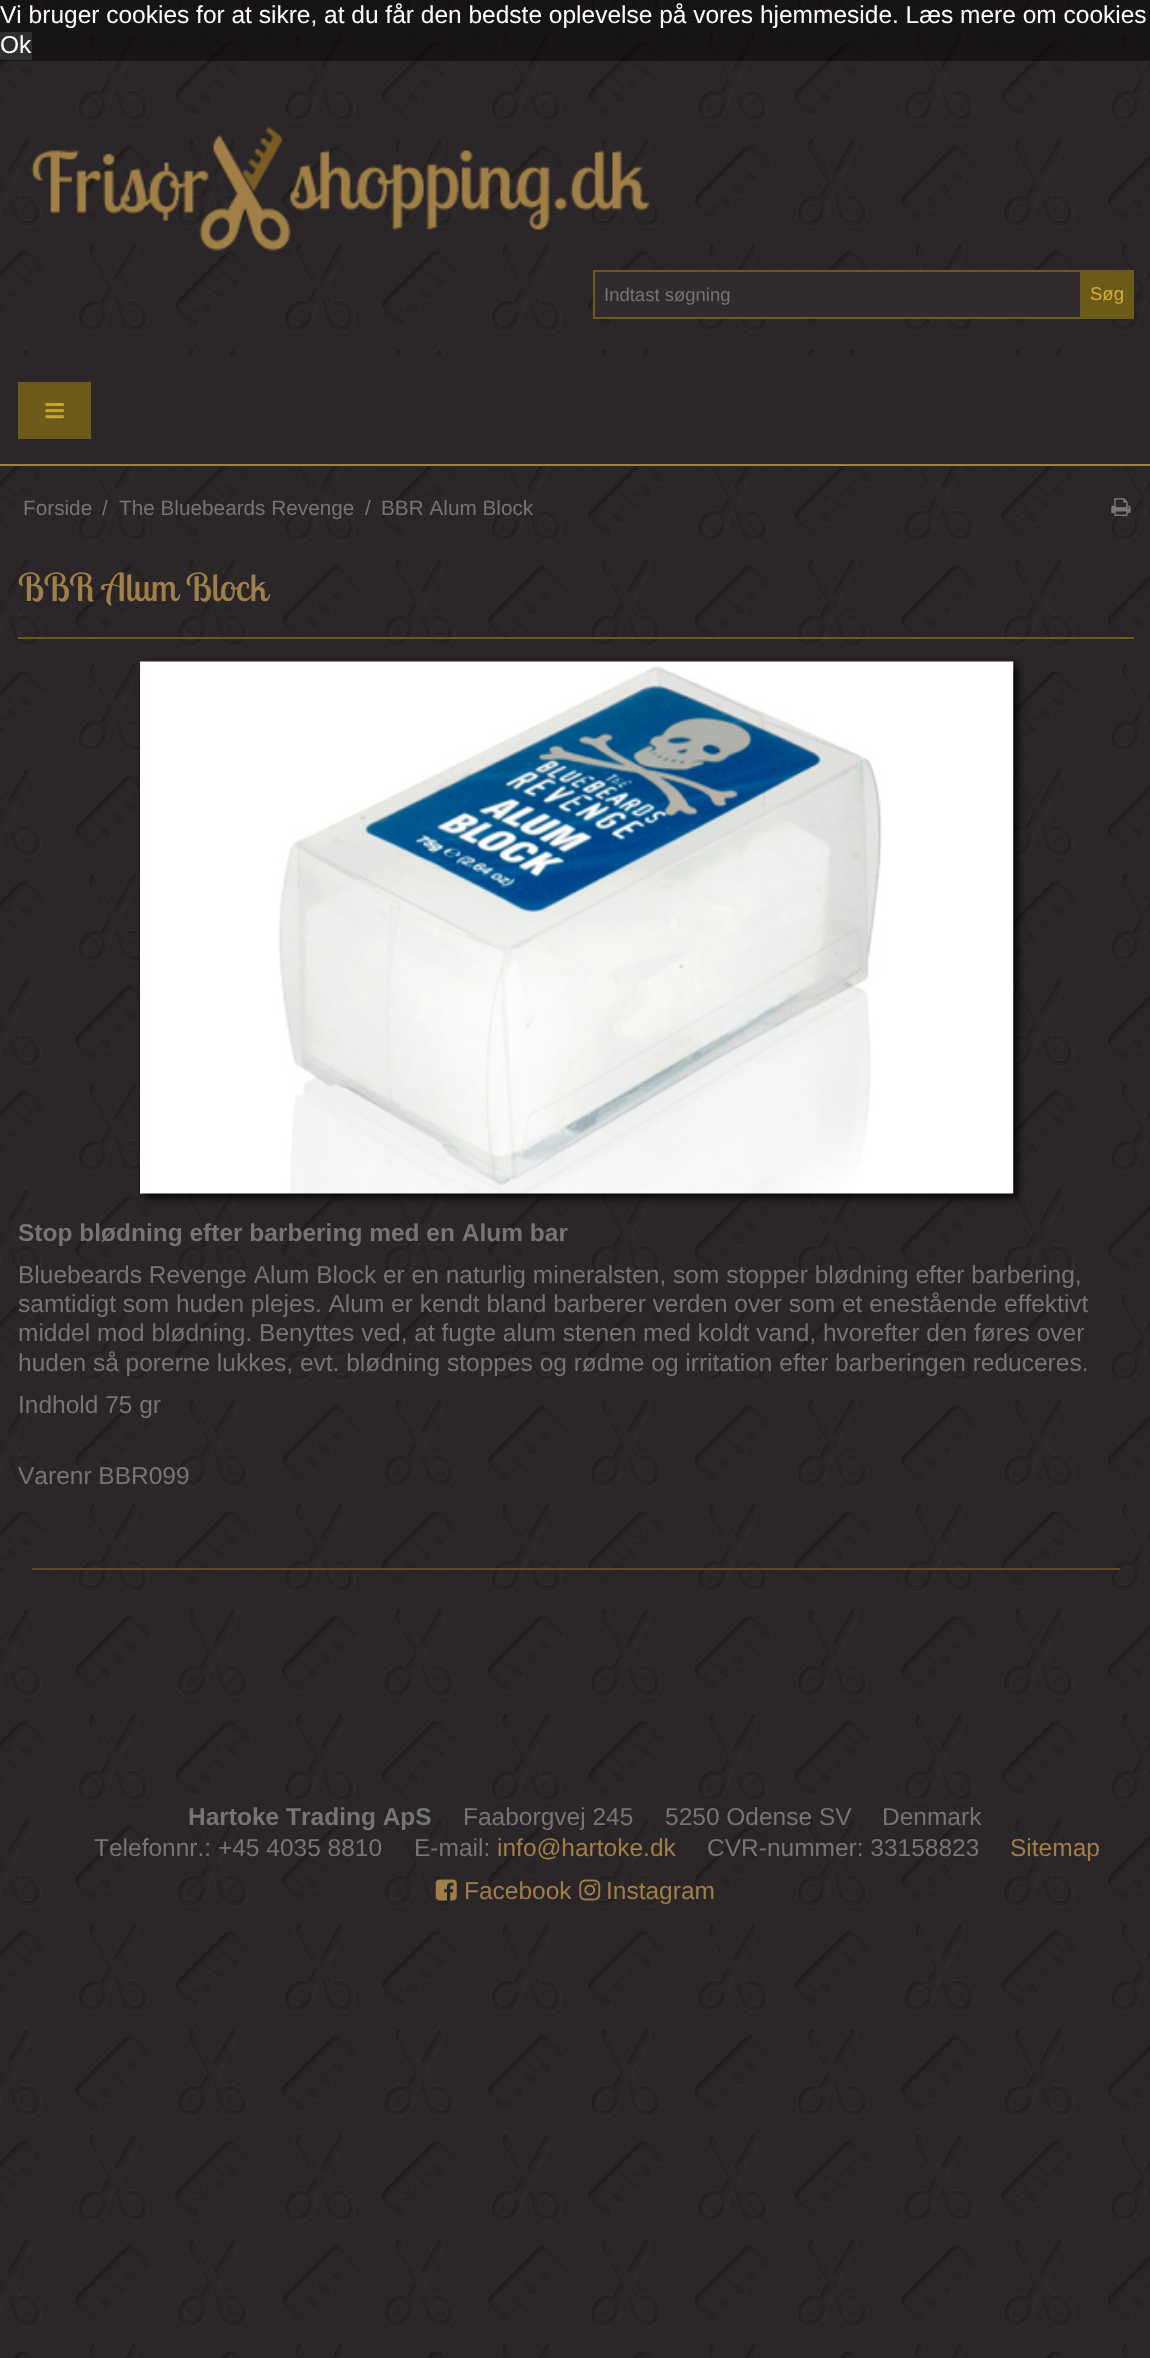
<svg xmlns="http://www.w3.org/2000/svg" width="1150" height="2358">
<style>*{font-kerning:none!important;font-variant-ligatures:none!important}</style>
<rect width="100%" height="100%" fill="#fff"/>
<image x="0" y="0" width="1150" height="2358" href="media/1.png"/>
<rect width="1150" height="61" fill="#00000075"/>
<text x="0" y="23" style="font-family:Liberation Sans;font-size:24.5px;fill:#fff">Vi bruger cookies for at sikre, at du får den bedste oplevelse på vores hjemmeside. Læs mere om cookies</text>
<rect y="32" width="32" height="28" fill="#2f2f2f"/>
<text x="0" y="53" style="font-family:Liberation Sans;font-size:24.5px;fill:#fff">Ok</text>
<image x="31" y="126" width="619" height="125" href="media/2.png"/>
<rect x="595" y="272" width="485" height="45" fill="#2f2b2e"/>
<rect x="593" y="270" width="487" height="2" fill="#6d5b1a"/>
<rect x="593" y="317" width="487" height="2" fill="#6d5b1a"/>
<rect x="593" y="270" width="2" height="49" fill="#6d5b1a"/>
<text x="604" y="301" style="font-family:Liberation Sans;font-size:18.5px;fill:#757575">Indtast søgning</text>
<rect x="1080" y="270" width="54" height="49" fill="#6d5b1a"/>
<text x="1090" y="300" style="font-family:Liberation Sans;font-size:18.5px;fill:#d4af37">Søg</text>
<rect y="355" width="1150" height="109" fill="#2c2729"/>
<rect y="464" width="1150" height="2" fill="#a07f48"/>
<rect x="18" y="382" width="73" height="57" fill="#6d5b1a"/>
<image x="45" y="402" width="19" height="17" href="media/3.png"/>
<text x="23" y="515" style="font-family:Liberation Sans;font-size:20.75px;fill:#757575">Forside</text>
<text x="102" y="515" style="font-family:Liberation Sans;font-size:20.75px;fill:#757575">/</text>
<text x="119" y="515" style="font-family:Liberation Sans;font-size:20.75px;fill:#757575">The Bluebeards Revenge</text>
<text x="365" y="515" style="font-family:Liberation Sans;font-size:20.75px;fill:#757575">/</text>
<text x="381" y="515" style="font-family:Liberation Sans;font-size:20.75px;fill:#757575">BBR Alum Block</text>
<image x="1111" y="498" width="20" height="18" href="media/4.png"/>
<rect x="18" y="637" width="1116" height="2" fill="#6d5b1a"/>
<text x="18" y="601" style="font-family:Lobster Two;font-size:38.25px;fill:#a07f48">BBR Alum Block</text>
<rect x="144" y="665" width="873" height="532" fill="#000" filter="blur(4.5px)"/>
<image x="140" y="661" width="874" height="533" href="media/5.png"/>
<text x="18" y="1241" style="font-family:Liberation Sans;font-size:24.5px;font-weight:bold;fill:#757575">Stop blødning efter barbering med en Alum bar</text>
<text x="18" y="1283" style="font-family:Liberation Sans;font-size:24.5px;fill:#757575">Bluebeards Revenge Alum Block er en naturlig mineralsten, som stopper blødning efter barbering,</text>
<text x="18" y="1312" style="font-family:Liberation Sans;font-size:24.5px;fill:#757575">samtidigt som huden plejes. Alum er kendt bland barberer verden over som et enestående effektivt</text>
<text x="18" y="1341" style="font-family:Liberation Sans;font-size:24.5px;fill:#757575">middel mod blødning. Benyttes ved, at fugte alum stenen med koldt vand, hvorefter den føres over</text>
<text x="18" y="1371" style="font-family:Liberation Sans;font-size:24.5px;fill:#757575">huden så porerne lukkes, evt. blødning stoppes og rødme og irritation efter barberingen reduceres.</text>
<text x="18" y="1413" style="font-family:Liberation Sans;font-size:24.5px;fill:#757575">Indhold 75 gr</text>
<text x="18" y="1484" style="font-family:Liberation Sans;font-size:24.5px;fill:#757575">Varenr BBR099</text>
<rect x="32" y="1568" width="1088" height="2" fill="#604922"/>
<text x="188" y="1825" style="font-family:Liberation Sans;font-size:24.5px;font-weight:bold;fill:#757575">Hartoke Trading ApS</text>
<text x="463" y="1825" style="font-family:Liberation Sans;font-size:24.5px;fill:#757575">Faaborgvej 245</text>
<text x="665" y="1825" style="font-family:Liberation Sans;font-size:24.5px;fill:#757575">5250 Odense SV</text>
<text x="882" y="1825" style="font-family:Liberation Sans;font-size:24.5px;fill:#757575">Denmark</text>
<text x="94" y="1856" style="font-family:Liberation Sans;font-size:24.5px;fill:#757575">Telefonnr.: +45 4035 8810</text>
<text x="414" y="1856" style="font-family:Liberation Sans;font-size:24.5px;fill:#757575">E-mail:</text>
<text x="497" y="1856" style="font-family:Liberation Sans;font-size:24.5px;fill:#a07f48">info@hartoke.dk</text>
<text x="707" y="1856" style="font-family:Liberation Sans;font-size:24.5px;fill:#757575">CVR-nummer: 33158823</text>
<text x="1010" y="1856" style="font-family:Liberation Sans;font-size:24.5px;fill:#a07f48">Sitemap</text>
<image x="435" y="1879" width="22" height="22" href="media/6.png"/>
<text x="464" y="1899" style="font-family:Liberation Sans;font-size:24.5px;fill:#a07f48">Facebook</text>
<image x="579" y="1879" width="22" height="22" href="media/7.png"/>
<text x="606" y="1899" style="font-family:Liberation Sans;font-size:24.5px;fill:#a07f48">Instagram</text>
</svg>
